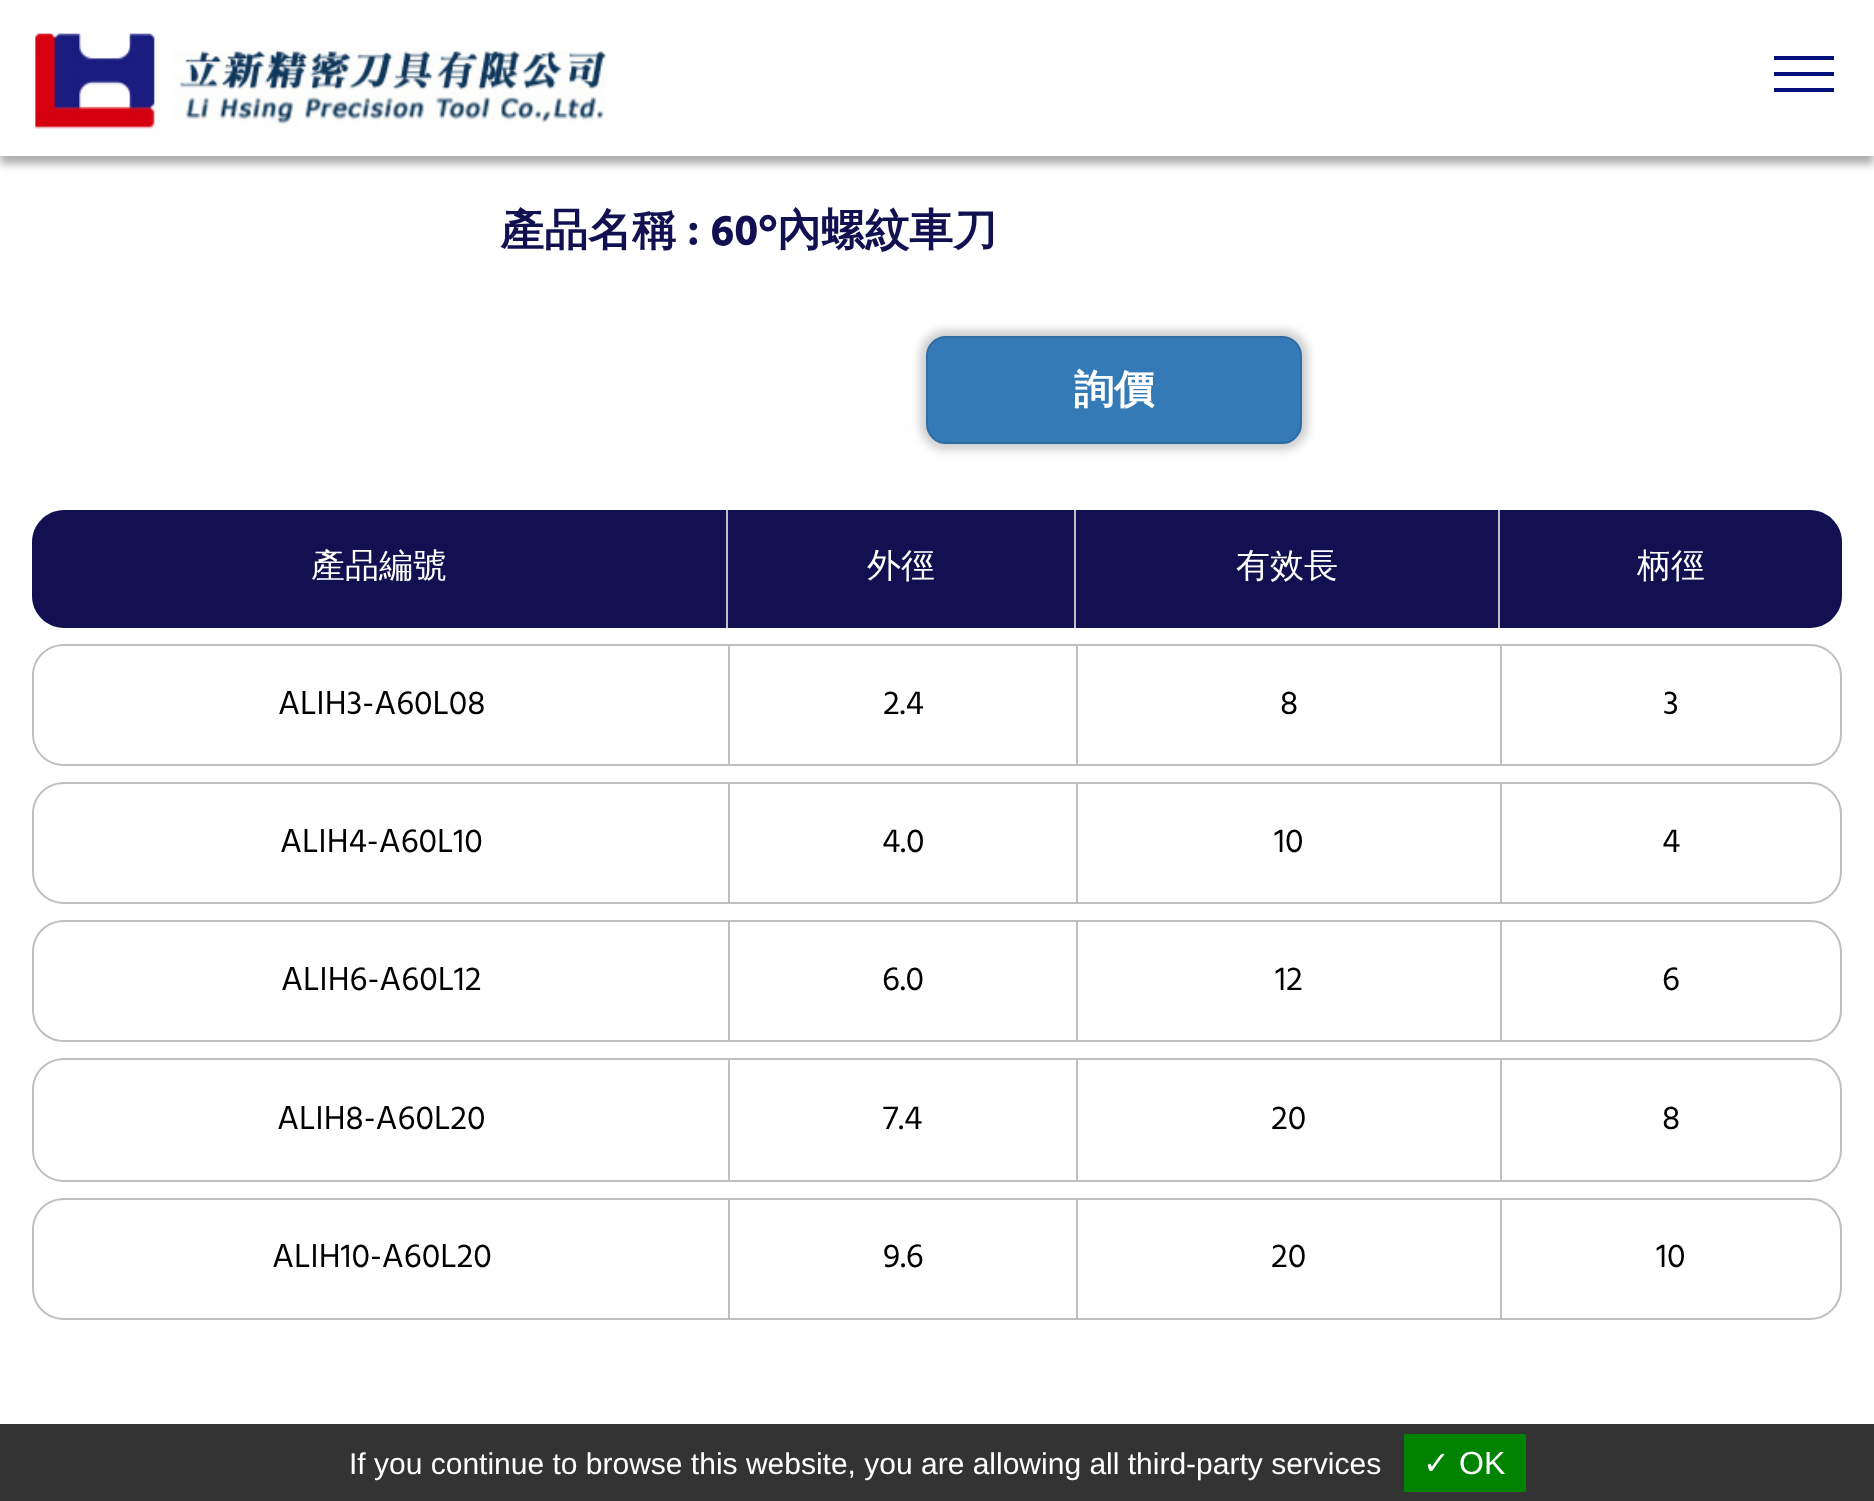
<svg xmlns="http://www.w3.org/2000/svg" width="1874" height="1501">
<rect width="100%" height="100%" fill="#fff"/>
<rect y="8" width="1874" height="156" fill="#32323266" filter="blur(4px)"/>
<rect y="1" width="1874" height="155" fill="#fff"/>
<image x="35" y="33" width="571" height="96" href="media/1.png"/>
<rect x="1774" y="56" width="60" height="4" fill="#030e7f"/>
<rect x="1774" y="72" width="60" height="4" fill="#030e7f"/>
<rect x="1774" y="88" width="60" height="4" fill="#030e7f"/>
<text x="500" y="245" style="font-family:WenQuanYi Zen Hei;font-size:44px;font-weight:bold;fill:#111151">產品名稱</text>
<text x="687" y="245" style="font-family:Hind;font-size:44px;font-weight:bold;fill:#111151">: 60°</text>
<text x="777" y="245" style="font-family:WenQuanYi Zen Hei;font-size:44px;font-weight:bold;fill:#111151">內螺紋車刀</text>
<rect x="920" y="330" width="388" height="120" rx="26" fill="#00000033" filter="blur(5px)"/>
<rect x="927" y="337" width="374" height="106" rx="19" fill="#337ab7" stroke="#2e6da4" stroke-width="2"/>
<text x="1074" y="403" style="font-family:WenQuanYi Zen Hei;font-size:40px;font-weight:bold;fill:#fff">詢價</text>
<path d="M64 510h664v118h-664c-17.5 0-32-14.5-32-32v-54c0-17.5 14.5-32 32-32z" fill="#111151"/>
<rect x="726" y="510" width="2" height="118" fill="#bfbfbf"/>
<text x="311" y="577" style="font-family:WenQuanYi Zen Hei;font-size:34px;font-weight:500;fill:#fff">產品編號</text>
<rect x="728" y="510" width="346" height="118" fill="#111151"/>
<rect x="1074" y="510" width="2" height="118" fill="#bfbfbf"/>
<text x="867" y="577" style="font-family:WenQuanYi Zen Hei;font-size:34px;font-weight:500;fill:#fff">外徑</text>
<rect x="1076" y="510" width="422" height="118" fill="#111151"/>
<rect x="1498" y="510" width="2" height="118" fill="#bfbfbf"/>
<text x="1236" y="577" style="font-family:WenQuanYi Zen Hei;font-size:34px;font-weight:500;fill:#fff">有效長</text>
<path d="M1500 510h310c17.5 0 32 14.5 32 32v54c0 17.5-14.5 32-32 32h-310z" fill="#111151"/>
<text x="1637" y="577" style="font-family:WenQuanYi Zen Hei;font-size:34px;font-weight:500;fill:#fff">柄徑</text>
<path d="M64 644h664v122h-664c-18 0-32-14-32-32v-58c0-18 14-32 32-32zm0 2h664v118h-664c-17 0-30-13-30-30v-58c0-17 13-30 30-30z" fill="#bfbfbf" fill-rule="evenodd"/>
<text x="278" y="714" style="font-family:Hind;font-size:34px;fill:#000">ALIH3-A60L08</text>
<rect x="728" y="644" width="772" height="2" fill="#bfbfbf"/>
<rect x="728" y="764" width="772" height="2" fill="#bfbfbf"/>
<rect x="728" y="644" width="2" height="122" fill="#bfbfbf"/>
<text x="883" y="714" style="font-family:Hind;font-size:34px;fill:#000">2.4</text>
<rect x="1076" y="644" width="2" height="122" fill="#bfbfbf"/>
<text x="1280" y="714" style="font-family:Hind;font-size:34px;fill:#000">8</text>
<path d="M1501 645h309c17 0 31 14 31 31v58c0 17-14 31-31 31h-309z" fill="none" stroke="#bfbfbf" stroke-width="2"/>
<text x="1663" y="714" style="font-family:Hind;font-size:34px;fill:#000">3</text>
<path d="M64 782h664v122h-664c-18 0-32-14-32-32v-58c0-18 14-32 32-32zm0 2h664v118h-664c-17 0-30-13-30-30v-58c0-17 13-30 30-30z" fill="#bfbfbf" fill-rule="evenodd"/>
<text x="280" y="852" style="font-family:Hind;font-size:34px;fill:#000">ALIH4-A60L10</text>
<rect x="728" y="782" width="772" height="2" fill="#bfbfbf"/>
<rect x="728" y="902" width="772" height="2" fill="#bfbfbf"/>
<rect x="728" y="782" width="2" height="122" fill="#bfbfbf"/>
<text x="882" y="852" style="font-family:Hind;font-size:34px;fill:#000">4.0</text>
<rect x="1076" y="782" width="2" height="122" fill="#bfbfbf"/>
<text x="1274" y="852" style="font-family:Hind;font-size:34px;fill:#000">10</text>
<path d="M1501 783h309c17 0 31 14 31 31v58c0 17-14 31-31 31h-309z" fill="none" stroke="#bfbfbf" stroke-width="2"/>
<text x="1662" y="852" style="font-family:Hind;font-size:34px;fill:#000">4</text>
<path d="M64 920h664v122h-664c-18 0-32-14-32-32v-58c0-18 14-32 32-32zm0 2h664v118h-664c-17 0-30-13-30-30v-58c0-17 13-30 30-30z" fill="#bfbfbf" fill-rule="evenodd"/>
<text x="281" y="990" style="font-family:Hind;font-size:34px;fill:#000">ALIH6-A60L12</text>
<rect x="728" y="920" width="772" height="2" fill="#bfbfbf"/>
<rect x="728" y="1040" width="772" height="2" fill="#bfbfbf"/>
<rect x="728" y="920" width="2" height="122" fill="#bfbfbf"/>
<text x="882" y="990" style="font-family:Hind;font-size:34px;fill:#000">6.0</text>
<rect x="1076" y="920" width="2" height="122" fill="#bfbfbf"/>
<text x="1275" y="990" style="font-family:Hind;font-size:34px;fill:#000">12</text>
<path d="M1501 921h309c17 0 31 14 31 31v58c0 17-14 31-31 31h-309z" fill="none" stroke="#bfbfbf" stroke-width="2"/>
<text x="1662" y="990" style="font-family:Hind;font-size:34px;fill:#000">6</text>
<path d="M64 1058h664v124h-664c-18 0-32-14-32-32v-60c0-18 14-32 32-32zm0 2h664v120h-664c-17 0-30-13-30-30v-60c0-17 13-30 30-30z" fill="#bfbfbf" fill-rule="evenodd"/>
<text x="277" y="1129" style="font-family:Hind;font-size:34px;fill:#000">ALIH8-A60L20</text>
<rect x="728" y="1058" width="772" height="2" fill="#bfbfbf"/>
<rect x="728" y="1180" width="772" height="2" fill="#bfbfbf"/>
<rect x="728" y="1058" width="2" height="124" fill="#bfbfbf"/>
<text x="883" y="1129" style="font-family:Hind;font-size:34px;fill:#000">7.4</text>
<rect x="1076" y="1058" width="2" height="124" fill="#bfbfbf"/>
<text x="1271" y="1129" style="font-family:Hind;font-size:34px;fill:#000">20</text>
<path d="M1501 1059h309c17 0 31 14 31 31v60c0 17-14 31-31 31h-309z" fill="none" stroke="#bfbfbf" stroke-width="2"/>
<text x="1662" y="1129" style="font-family:Hind;font-size:34px;fill:#000">8</text>
<path d="M64 1198h664v122h-664c-18 0-32-14-32-32v-58c0-18 14-32 32-32zm0 2h664v118h-664c-17 0-30-13-30-30v-58c0-17 13-30 30-30z" fill="#bfbfbf" fill-rule="evenodd"/>
<text x="272" y="1267" style="font-family:Hind;font-size:34px;fill:#000">ALIH10-A60L20</text>
<rect x="728" y="1198" width="772" height="2" fill="#bfbfbf"/>
<rect x="728" y="1318" width="772" height="2" fill="#bfbfbf"/>
<rect x="728" y="1198" width="2" height="122" fill="#bfbfbf"/>
<text x="883" y="1267" style="font-family:Hind;font-size:34px;fill:#000">9.6</text>
<rect x="1076" y="1198" width="2" height="122" fill="#bfbfbf"/>
<text x="1271" y="1267" style="font-family:Hind;font-size:34px;fill:#000">20</text>
<path d="M1501 1199h309c17 0 31 14 31 31v58c0 17-14 31-31 31h-309z" fill="none" stroke="#bfbfbf" stroke-width="2"/>
<text x="1656" y="1267" style="font-family:Hind;font-size:34px;fill:#000">10</text>
<rect y="1424" width="1874" height="77" fill="#333"/>
<text x="349" y="1474" style="font-family:Liberation Sans;font-size:30px;fill:#fff">If you continue to browse this website, you are allowing all third-party services</text>
<rect x="1404" y="1434" width="122" height="58" fill="#008300"/>
<text x="1423" y="1474" style="font-family:DejaVu Sans;font-size:32px;fill:#fff">✓</text>
<text x="1459" y="1474" style="font-family:Liberation Sans;font-size:32px;fill:#fff">OK</text>
</svg>
